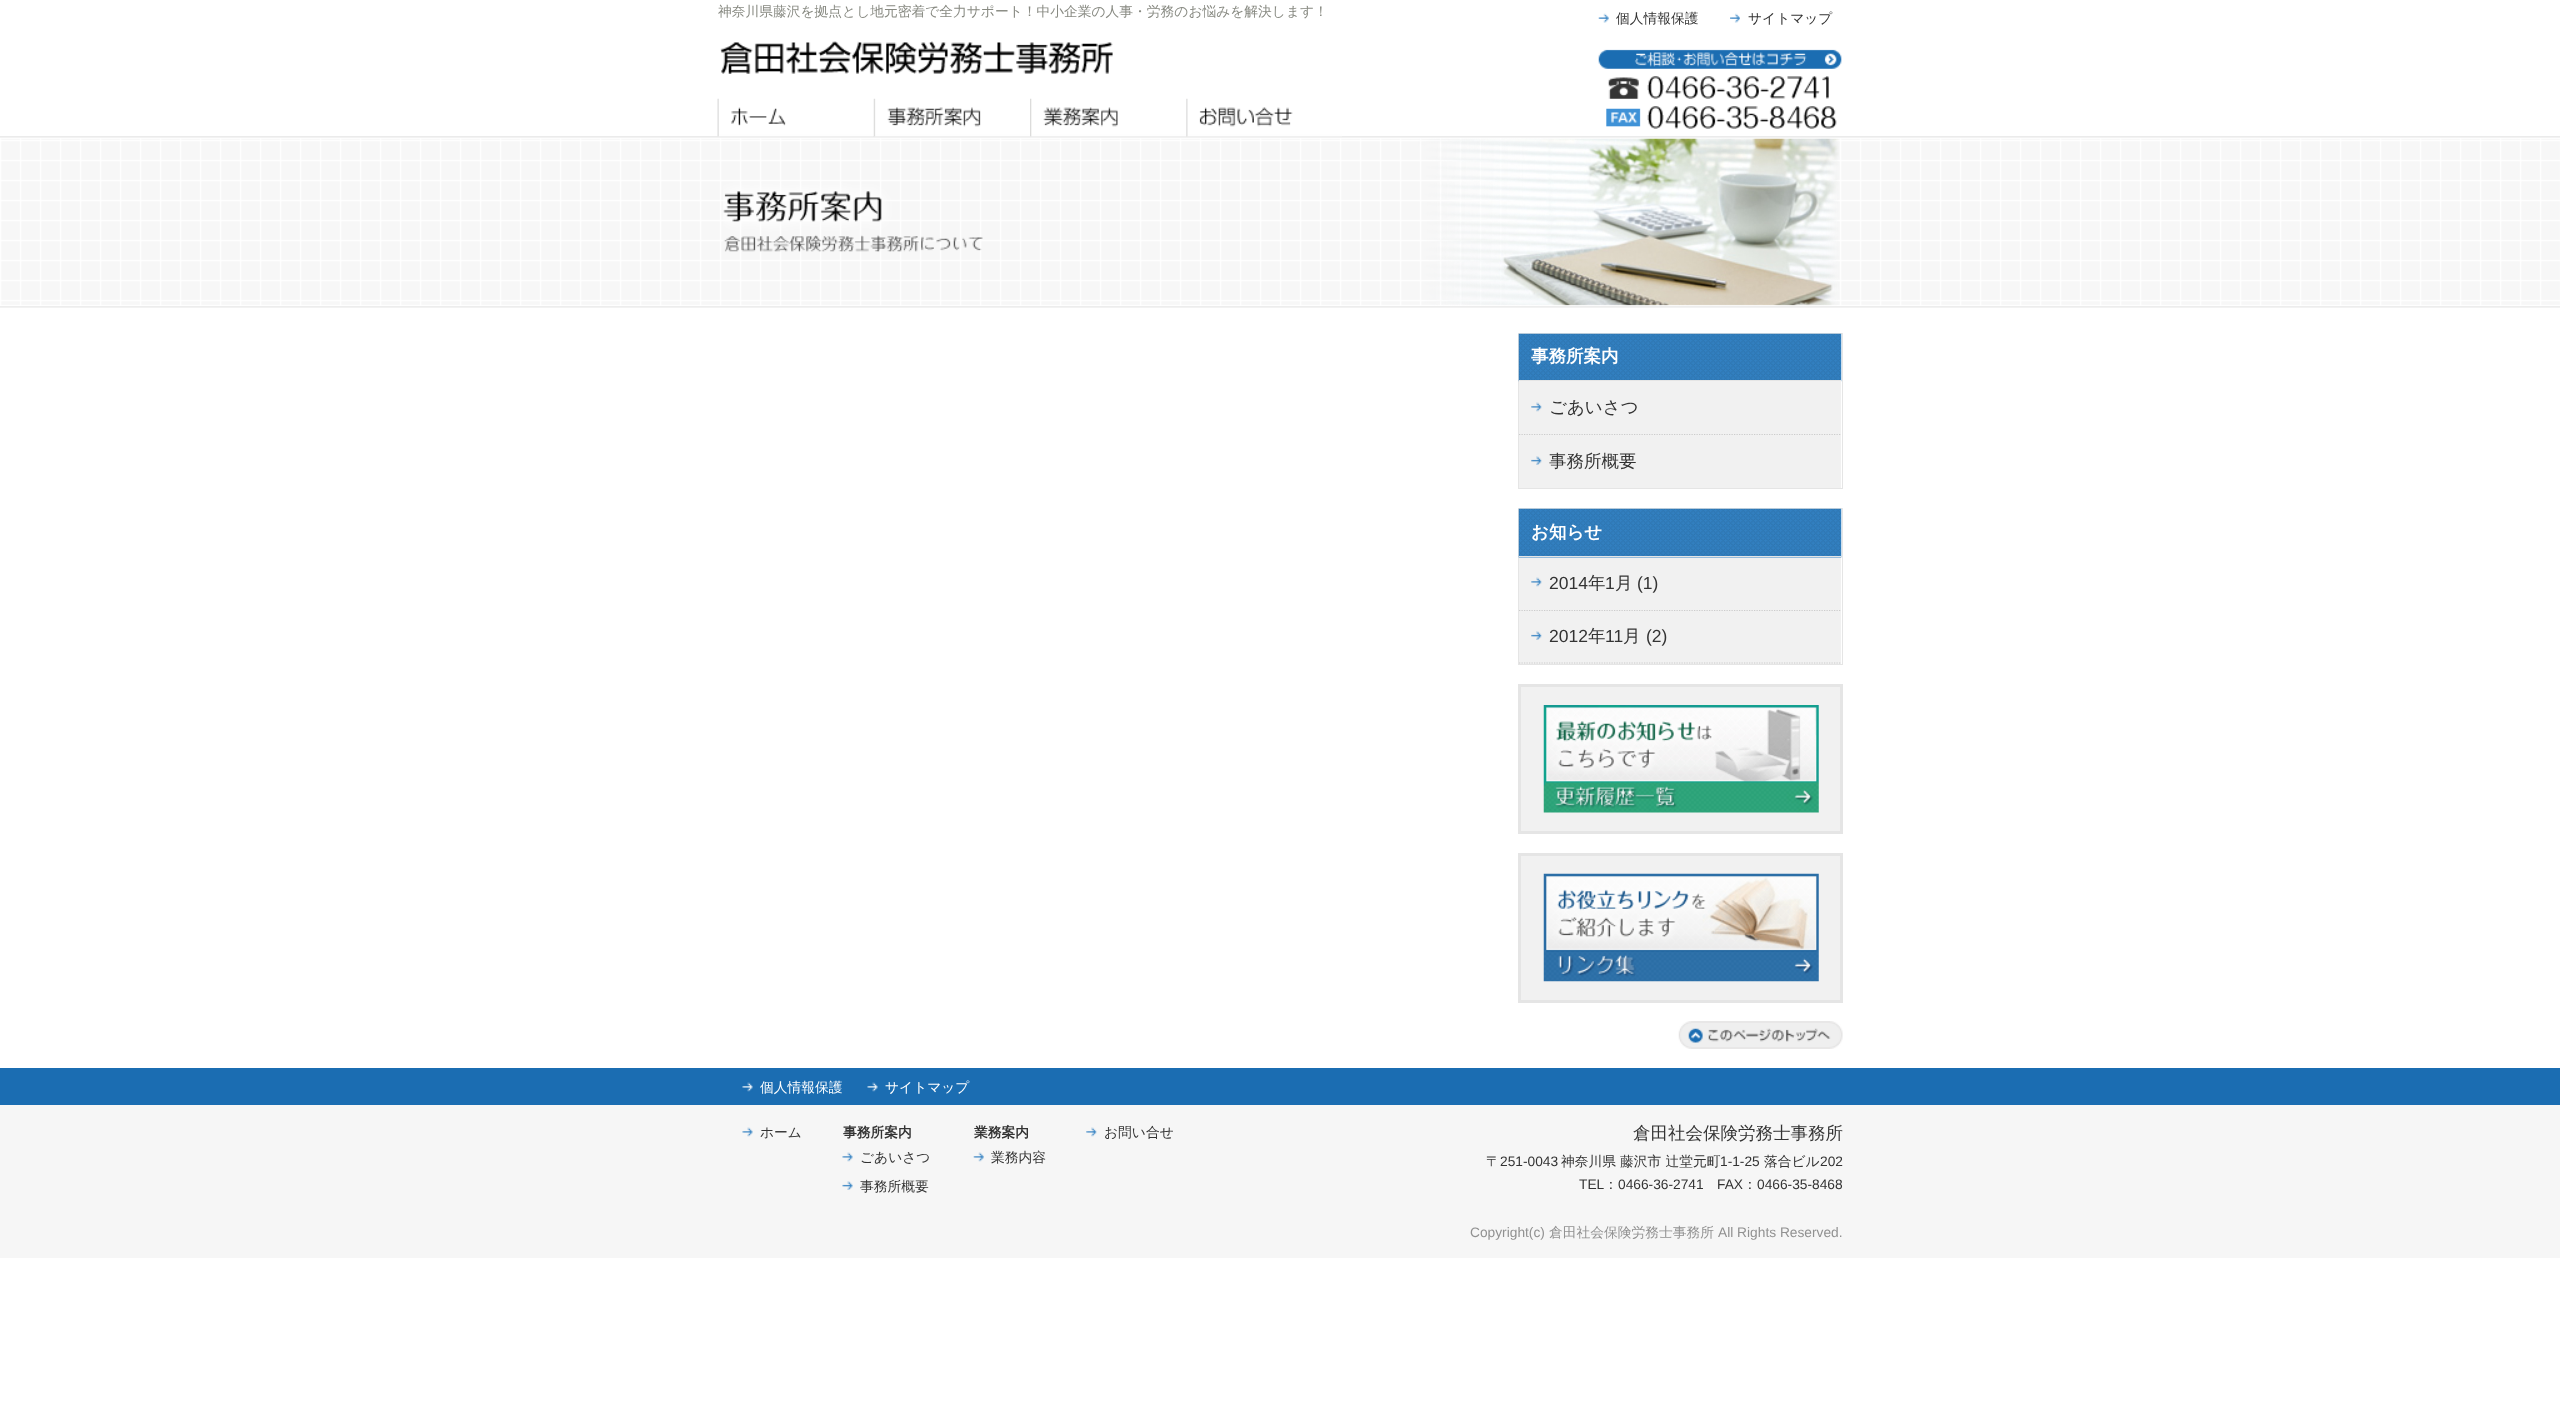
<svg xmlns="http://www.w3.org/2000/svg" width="2560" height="1402">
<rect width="100%" height="100%" fill="#fff"/>
<text x="718" y="16" style="font-family:WenQuanYi Zen Hei;font-size:13.75px;font-weight:500;fill:#888a82">神奈川県藤沢を拠点とし地元密着で全力サポート！中小企業の人事・労務のお悩みを解決します！</text>
<image x="720" y="41" width="393" height="33" href="media/1.png"/>
<image x="0" y="136" width="2560" height="172" href="media/9.png"/>
<image x="717" y="98" width="156" height="39" href="media/2.png"/>
<image x="873" y="98" width="157" height="39" href="media/3.png"/>
<image x="1030" y="98" width="156" height="39" href="media/4.png"/>
<image x="1186" y="98" width="156" height="39" href="media/5.png"/>
<image x="1598" y="13" width="11" height="10" href="media/6.png"/>
<text x="1616" y="23" style="font-family:WenQuanYi Zen Hei;font-size:13.75px;font-weight:500;fill:#333">個人情報保護</text>
<image x="1730" y="13" width="10" height="10" href="media/7.png"/>
<text x="1748" y="23" style="font-family:WenQuanYi Zen Hei;font-size:13.75px;font-weight:500;fill:#333">サイトマップ</text>
<image x="1598" y="49" width="244" height="80" href="media/8.png"/>
<image x="723" y="138" width="1116" height="168" href="media/10.png"/>
<rect x="1518.5" y="333.5" width="324" height="155" fill="none" stroke="#e5e5e5"/>
<image x="1518" y="333" width="324" height="49" href="media/11.png"/>
<rect x="1519" y="380" width="322" height="1" fill="#e5e5e5"/>
<text x="1531" y="362" style="font-family:WenQuanYi Zen Hei;font-size:17.5px;font-weight:bold;fill:#fff">事務所案内</text>
<rect x="1519" y="381" width="322" height="107" fill="#f1f1f1"/>
<path d="M1519 434.5h322" fill="none" stroke="#ccc" stroke-width="1.2" stroke-dasharray="1.25 1.25"/>
<image x="1531" y="402" width="11" height="10" href="media/12.png"/>
<text x="1549" y="413" style="font-family:WenQuanYi Zen Hei;font-size:17.5px;font-weight:500;fill:#333">ごあいさつ</text>
<image x="1531" y="456" width="11" height="9" href="media/13.png"/>
<text x="1549" y="467" style="font-family:WenQuanYi Zen Hei;font-size:17.5px;font-weight:500;fill:#333">事務所概要</text>
<rect x="1518.5" y="508.5" width="324" height="156" fill="none" stroke="#e5e5e5"/>
<image x="1518" y="508" width="324" height="50" href="media/14.png"/>
<rect x="1519" y="556" width="322" height="1" fill="#e5e5e5"/>
<text x="1531" y="538" style="font-family:WenQuanYi Zen Hei;font-size:17.5px;font-weight:bold;fill:#fff">お知らせ</text>
<rect x="1519" y="558" width="322" height="106" fill="#f1f1f1"/>
<path d="M1519 610.5h322" fill="none" stroke="#ccc" stroke-width="1.2" stroke-dasharray="1.25 1.25"/>
<image x="1531" y="577" width="11" height="10" href="media/12.png"/>
<text x="1549" y="589" style="font-family:Liberation Sans;font-size:17.5px;fill:#333">2014</text>
<text x="1588" y="589" style="font-family:WenQuanYi Zen Hei;font-size:17.5px;font-weight:500;fill:#333">年</text>
<text x="1605" y="589" style="font-family:Liberation Sans;font-size:17.5px;fill:#333">1</text>
<text x="1615" y="589" style="font-family:WenQuanYi Zen Hei;font-size:17.5px;font-weight:500;fill:#333">月</text>
<text x="1637" y="589" style="font-family:Liberation Sans;font-size:17.5px;fill:#333">(1)</text>
<path d="M1519 663h322" fill="none" stroke="#ccc" stroke-width="1.2" stroke-dasharray="1.25 1.25"/>
<image x="1531" y="631" width="11" height="9" href="media/13.png"/>
<text x="1549" y="642" style="font-family:Liberation Sans;font-size:17.5px;fill:#333">2012</text>
<text x="1588" y="642" style="font-family:WenQuanYi Zen Hei;font-size:17.5px;font-weight:500;fill:#333">年</text>
<text x="1605" y="642" style="font-family:Liberation Sans;font-size:17.5px;fill:#333">11</text>
<text x="1623" y="642" style="font-family:WenQuanYi Zen Hei;font-size:17.5px;font-weight:500;fill:#333">月</text>
<text x="1646" y="642" style="font-family:Liberation Sans;font-size:17.5px;fill:#333">(2)</text>
<rect x="1519.5" y="685.5" width="322" height="147" fill="#f1f1f1" stroke="#e5e5e5" stroke-width="3"/>
<image x="1543" y="705" width="276" height="108" href="media/15.png"/>
<rect x="1519.5" y="854.5" width="322" height="147" fill="#f1f1f1" stroke="#e5e5e5" stroke-width="3"/>
<image x="1543" y="873" width="276" height="109" href="media/16.png"/>
<image x="1678" y="1021" width="165" height="28" href="media/17.png"/>
<rect y="1068" width="2560" height="37" fill="#1b6db2"/>
<image x="742" y="1082" width="11" height="10" href="media/18.png"/>
<text x="760" y="1092" style="font-family:WenQuanYi Zen Hei;font-size:13.75px;font-weight:500;fill:#fff">個人情報保護</text>
<image x="867" y="1082" width="11" height="10" href="media/18.png"/>
<text x="885" y="1092" style="font-family:WenQuanYi Zen Hei;font-size:13.75px;font-weight:500;fill:#fff">サイトマップ</text>
<rect y="1105" width="2560" height="153" fill="#f6f6f6"/>
<image x="742" y="1127" width="11" height="10" href="media/19.png"/>
<text x="760" y="1137" style="font-family:WenQuanYi Zen Hei;font-size:13.75px;font-weight:500;fill:#333">ホーム</text>
<text x="843" y="1137" style="font-family:WenQuanYi Zen Hei;font-size:13.75px;font-weight:bold;fill:#333">事務所案内</text>
<image x="842" y="1152" width="11" height="10" href="media/19.png"/>
<text x="860" y="1162" style="font-family:WenQuanYi Zen Hei;font-size:13.75px;font-weight:500;fill:#333">ごあいさつ</text>
<image x="842" y="1181" width="11" height="9" href="media/20.png"/>
<text x="860" y="1191" style="font-family:WenQuanYi Zen Hei;font-size:13.75px;font-weight:500;fill:#333">事務所概要</text>
<text x="974" y="1137" style="font-family:WenQuanYi Zen Hei;font-size:13.75px;font-weight:bold;fill:#333">業務案内</text>
<image x="973" y="1152" width="11" height="10" href="media/21.png"/>
<text x="991" y="1162" style="font-family:WenQuanYi Zen Hei;font-size:13.75px;font-weight:500;fill:#333">業務内容</text>
<image x="1086" y="1127" width="11" height="10" href="media/22.png"/>
<text x="1104" y="1137" style="font-family:WenQuanYi Zen Hei;font-size:13.75px;font-weight:500;fill:#333">お問い合せ</text>
<text x="1633" y="1139" style="font-family:WenQuanYi Zen Hei;font-size:17.5px;font-weight:500;fill:#333">倉田社会保険労務士事務所</text>
<text x="1486" y="1166" style="font-family:WenQuanYi Zen Hei;font-size:13.75px;font-weight:500;fill:#333">〒</text>
<text x="1500" y="1166" style="font-family:Liberation Sans;font-size:13.75px;fill:#333">251-0043</text>
<text x="1561" y="1166" style="font-family:WenQuanYi Zen Hei;font-size:13.75px;font-weight:500;fill:#333">神奈川県 藤沢市 辻堂元町</text>
<text x="1720" y="1166" style="font-family:Liberation Sans;font-size:13.75px;fill:#333">1-1-25</text>
<text x="1764" y="1166" style="font-family:WenQuanYi Zen Hei;font-size:13.75px;font-weight:500;fill:#333">落合ビル</text>
<text x="1820" y="1166" style="font-family:Liberation Sans;font-size:13.75px;fill:#333">202</text>
<text x="1579" y="1189" style="font-family:Liberation Sans;font-size:13.75px;fill:#333">TEL</text>
<text x="1604" y="1189" style="font-family:WenQuanYi Zen Hei;font-size:13.75px;font-weight:500;fill:#333">：</text>
<text x="1618" y="1189" style="font-family:Liberation Sans;font-size:13.75px;fill:#333">0466-36-2741</text>
<text x="1717" y="1189" style="font-family:Liberation Sans;font-size:13.75px;fill:#333">FAX</text>
<text x="1743" y="1189" style="font-family:WenQuanYi Zen Hei;font-size:13.75px;font-weight:500;fill:#333">：</text>
<text x="1757" y="1189" style="font-family:Liberation Sans;font-size:13.75px;fill:#333">0466-35-8468</text>
<text x="1470" y="1237" style="font-family:Liberation Sans;font-size:13.75px;fill:#919191">Copyright(c)</text>
<text x="1549" y="1237" style="font-family:WenQuanYi Zen Hei;font-size:13.75px;font-weight:500;fill:#919191">倉田社会保険労務士事務所</text>
<text x="1718" y="1237" style="font-family:Liberation Sans;font-size:13.75px;fill:#919191">All Rights Reserved.</text>
</svg>
